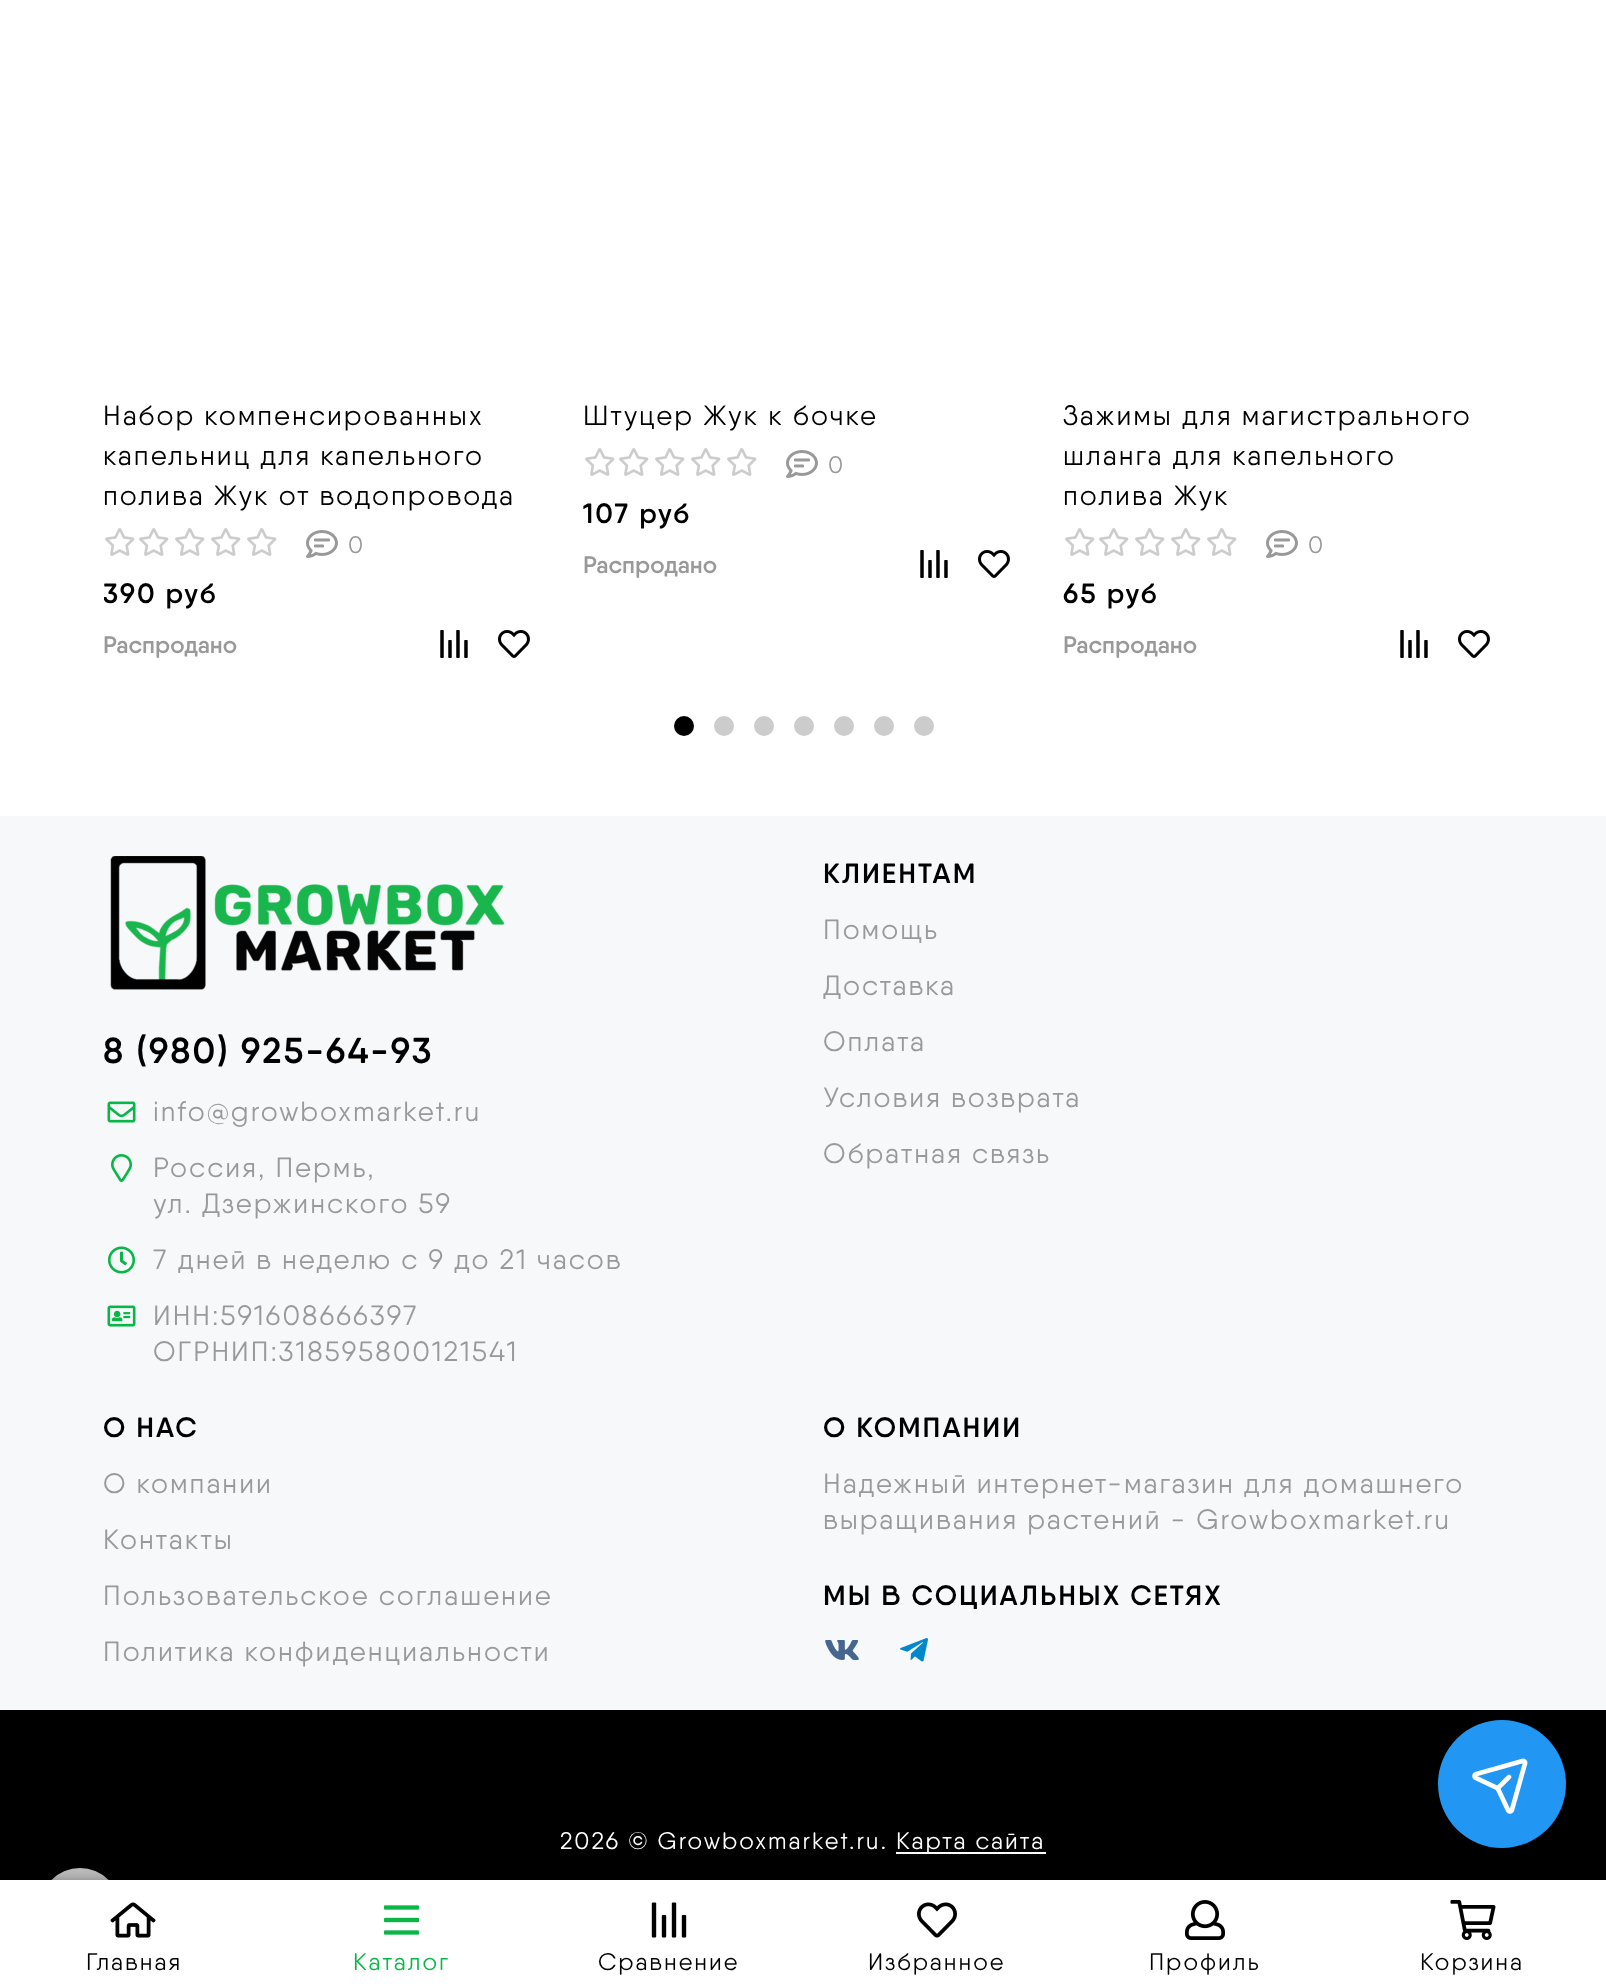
<svg xmlns="http://www.w3.org/2000/svg" width="1606" height="1988">
<defs>
<clipPath id="clip1"><rect x="104" width="1400" height="716"/></clipPath>
</defs>
<rect width="100%" height="100%" fill="#fff"/>
<text x="103" y="425" style="font-family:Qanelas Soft;font-size:28px;letter-spacing:2px;fill:#000">Набор компенсированных</text>
<text x="103" y="465" style="font-family:Qanelas Soft;font-size:28px;letter-spacing:2px;fill:#000">капельниц для капельного</text>
<text x="103" y="505" style="font-family:Qanelas Soft;font-size:28px;letter-spacing:2px;fill:#000">полива Жук от водопровода</text>
<image x="105" y="528" width="30" height="28" href="media/1.png"/>
<image x="139" y="528" width="30" height="28" href="media/1.png"/>
<image x="175" y="528" width="30" height="28" href="media/1.png"/>
<image x="211" y="528" width="30" height="28" href="media/1.png"/>
<image x="247" y="528" width="30" height="28" href="media/1.png"/>
<image x="306" y="530" width="32" height="28" href="media/2.png"/>
<text x="348" y="553" style="font-family:Qanelas Soft;font-size:24px;letter-spacing:2px;fill:#999">0</text>
<g clip-path="url(#clip1)">
<text x="103" y="603" style="font-family:Qanelas Soft;font-size:28px;font-weight:600;letter-spacing:2px;fill:#000">390 руб</text>
</g>
<text x="103" y="653" style="font-family:Qanelas Soft;font-size:24px;font-weight:600;fill:#999">Распродано</text>
<image x="440" y="630" width="28" height="28" href="media/3.png"/>
<image x="498" y="630" width="32" height="28" href="media/4.png"/>
<text x="583" y="425" style="font-family:Qanelas Soft;font-size:28px;letter-spacing:2px;fill:#000">Штуцер Жук к бочке</text>
<image x="585" y="448" width="30" height="28" href="media/1.png"/>
<image x="619" y="448" width="30" height="28" href="media/1.png"/>
<image x="655" y="448" width="30" height="28" href="media/1.png"/>
<image x="691" y="448" width="30" height="28" href="media/1.png"/>
<image x="727" y="448" width="30" height="28" href="media/1.png"/>
<image x="786" y="450" width="32" height="28" href="media/2.png"/>
<text x="828" y="473" style="font-family:Qanelas Soft;font-size:24px;letter-spacing:2px;fill:#999">0</text>
<text x="583" y="523" style="font-family:Qanelas Soft;font-size:28px;font-weight:600;letter-spacing:2px;fill:#000">107 руб</text>
<text x="583" y="573" style="font-family:Qanelas Soft;font-size:24px;font-weight:600;fill:#999">Распродано</text>
<image x="920" y="550" width="28" height="28" href="media/3.png"/>
<image x="978" y="550" width="32" height="28" href="media/4.png"/>
<text x="1063" y="425" style="font-family:Qanelas Soft;font-size:28px;letter-spacing:2px;fill:#000">Зажимы для магистрального</text>
<text x="1063" y="465" style="font-family:Qanelas Soft;font-size:28px;letter-spacing:2px;fill:#000">шланга для капельного</text>
<text x="1063" y="505" style="font-family:Qanelas Soft;font-size:28px;letter-spacing:2px;fill:#000">полива Жук</text>
<image x="1065" y="528" width="30" height="28" href="media/1.png"/>
<image x="1099" y="528" width="30" height="28" href="media/1.png"/>
<image x="1135" y="528" width="30" height="28" href="media/1.png"/>
<image x="1171" y="528" width="30" height="28" href="media/1.png"/>
<image x="1207" y="528" width="30" height="28" href="media/1.png"/>
<image x="1266" y="530" width="32" height="28" href="media/2.png"/>
<text x="1308" y="553" style="font-family:Qanelas Soft;font-size:24px;letter-spacing:2px;fill:#999">0</text>
<text x="1063" y="603" style="font-family:Qanelas Soft;font-size:28px;font-weight:600;letter-spacing:2px;fill:#000">65 руб</text>
<text x="1063" y="653" style="font-family:Qanelas Soft;font-size:24px;font-weight:600;fill:#999">Распродано</text>
<image x="1400" y="630" width="28" height="28" href="media/3.png"/>
<image x="1458" y="630" width="32" height="28" href="media/4.png"/>
<circle cx="684" cy="726" r="10" fill="#000"/>
<circle cx="724" cy="726" r="10" fill="#ccc"/>
<circle cx="764" cy="726" r="10" fill="#ccc"/>
<circle cx="804" cy="726" r="10" fill="#ccc"/>
<circle cx="844" cy="726" r="10" fill="#ccc"/>
<circle cx="884" cy="726" r="10" fill="#ccc"/>
<circle cx="924" cy="726" r="10" fill="#ccc"/>
<rect y="816" width="1606" height="894" fill="#f7f8fa"/>
<image x="110" y="856" width="394" height="134" href="media/5.png"/>
<text x="103" y="1063" style="font-family:Qanelas Soft;font-size:36px;font-weight:600;letter-spacing:2px;fill:#000">8 (980) 925-64-93</text>
<image x="107" y="1101" width="29" height="22" href="media/6.png"/>
<text x="153" y="1121" style="font-family:Qanelas Soft;font-size:28px;letter-spacing:2px;fill:#999">info@growboxmarket.ru</text>
<image x="111" y="1154" width="21" height="28" href="media/7.png"/>
<text x="153" y="1177" style="font-family:Qanelas Soft;font-size:28px;letter-spacing:2px;fill:#999">Россия, Пермь,</text>
<text x="153" y="1213" style="font-family:Qanelas Soft;font-size:28px;letter-spacing:2px;fill:#999">ул. Дзержинского 59</text>
<image x="108" y="1246" width="27" height="28" href="media/8.png"/>
<text x="153" y="1269" style="font-family:Qanelas Soft;font-size:28px;letter-spacing:2px;fill:#999">7 дней в неделю с 9 до 21 часов</text>
<image x="107" y="1305" width="29" height="22" href="media/9.png"/>
<text x="153" y="1325" style="font-family:Qanelas Soft;font-size:28px;letter-spacing:2px;fill:#999">ИНН:591608666397</text>
<text x="153" y="1361" style="font-family:Qanelas Soft;font-size:28px;letter-spacing:2px;fill:#999">ОГРНИП:318595800121541</text>
<text x="823" y="883" style="font-family:Qanelas Soft;font-size:28px;font-weight:600;letter-spacing:2px;fill:#000">КЛИЕНТАМ</text>
<text x="823" y="939" style="font-family:Qanelas Soft;font-size:28px;letter-spacing:2px;fill:#999">Помощь</text>
<text x="823" y="995" style="font-family:Qanelas Soft;font-size:28px;letter-spacing:2px;fill:#999">Доставка</text>
<text x="823" y="1051" style="font-family:Qanelas Soft;font-size:28px;letter-spacing:2px;fill:#999">Оплата</text>
<text x="823" y="1107" style="font-family:Qanelas Soft;font-size:28px;letter-spacing:2px;fill:#999">Условия возврата</text>
<text x="823" y="1163" style="font-family:Qanelas Soft;font-size:28px;letter-spacing:2px;fill:#999">Обратная связь</text>
<text x="103" y="1437" style="font-family:Qanelas Soft;font-size:28px;font-weight:600;letter-spacing:2px;fill:#000">О НАС</text>
<text x="103" y="1493" style="font-family:Qanelas Soft;font-size:28px;letter-spacing:2px;fill:#999">О компании</text>
<text x="103" y="1549" style="font-family:Qanelas Soft;font-size:28px;letter-spacing:2px;fill:#999">Контакты</text>
<text x="103" y="1605" style="font-family:Qanelas Soft;font-size:28px;letter-spacing:2px;fill:#999">Пользовательское соглашение</text>
<text x="103" y="1661" style="font-family:Qanelas Soft;font-size:28px;letter-spacing:2px;fill:#999">Политика конфиденциальности</text>
<text x="823" y="1437" style="font-family:Qanelas Soft;font-size:28px;font-weight:600;letter-spacing:2px;fill:#000">О КОМПАНИИ</text>
<text x="823" y="1493" style="font-family:Qanelas Soft;font-size:28px;letter-spacing:2px;fill:#999">Надежный интернет-магазин для домашнего</text>
<text x="823" y="1529" style="font-family:Qanelas Soft;font-size:28px;letter-spacing:2px;fill:#999">выращивания растений - Growboxmarket.ru</text>
<text x="823" y="1605" style="font-family:Qanelas Soft;font-size:28px;font-weight:600;letter-spacing:2px;fill:#000">МЫ В СОЦИАЛЬНЫХ СЕТЯХ</text>
<image x="825" y="1640" width="34" height="20" href="media/10.png"/>
<image x="900" y="1638" width="28" height="24" href="media/11.png"/>
<rect y="1710" width="1606" height="170" fill="#000"/>
<text x="560" y="1849" style="font-family:Qanelas Soft;font-size:24px;letter-spacing:2px;fill:#fff">2026 © Growboxmarket.ru.</text>
<rect x="896" y="1852" width="150" height="2" fill="#fff"/>
<text x="896" y="1849" style="font-family:Qanelas Soft;font-size:24px;letter-spacing:2px;fill:#fff">Карта сайта</text>
<circle cx="80" cy="1908" r="40" fill="#bababa"/>
<rect x="6" y="1880" width="1594" height="96" fill="#0000004d" filter="blur(5px)"/>
<rect y="1880" width="1606" height="105" fill="#fff"/>
<image x="110" y="1902" width="46" height="36" href="media/12.png"/>
<text x="86" y="1970" style="font-family:Qanelas Soft;font-size:24px;letter-spacing:2px;fill:#000">Главная</text>
<image x="384" y="1905" width="35" height="30" href="media/13.png"/>
<text x="353" y="1970" style="font-family:Qanelas Soft;font-size:24px;letter-spacing:2px;fill:#0bb648">Каталог</text>
<image x="651" y="1902" width="36" height="36" href="media/14.png"/>
<text x="598" y="1970" style="font-family:Qanelas Soft;font-size:24px;letter-spacing:2px;fill:#000">Сравнение</text>
<image x="917" y="1902" width="40" height="36" href="media/15.png"/>
<text x="868" y="1970" style="font-family:Qanelas Soft;font-size:24px;letter-spacing:2px;fill:#000">Избранное</text>
<image x="1185" y="1900" width="40" height="40" href="media/16.png"/>
<text x="1149" y="1970" style="font-family:Qanelas Soft;font-size:24px;letter-spacing:2px;fill:#000">Профиль</text>
<image x="1450" y="1900" width="46" height="40" href="media/17.png"/>
<text x="1420" y="1970" style="font-family:Qanelas Soft;font-size:24px;letter-spacing:2px;fill:#000">Корзина</text>
<circle cx="1502" cy="1784" r="64" fill="#2196f3"/>
<image x="1472" y="1758" width="56" height="56" href="media/18.png"/>
</svg>
